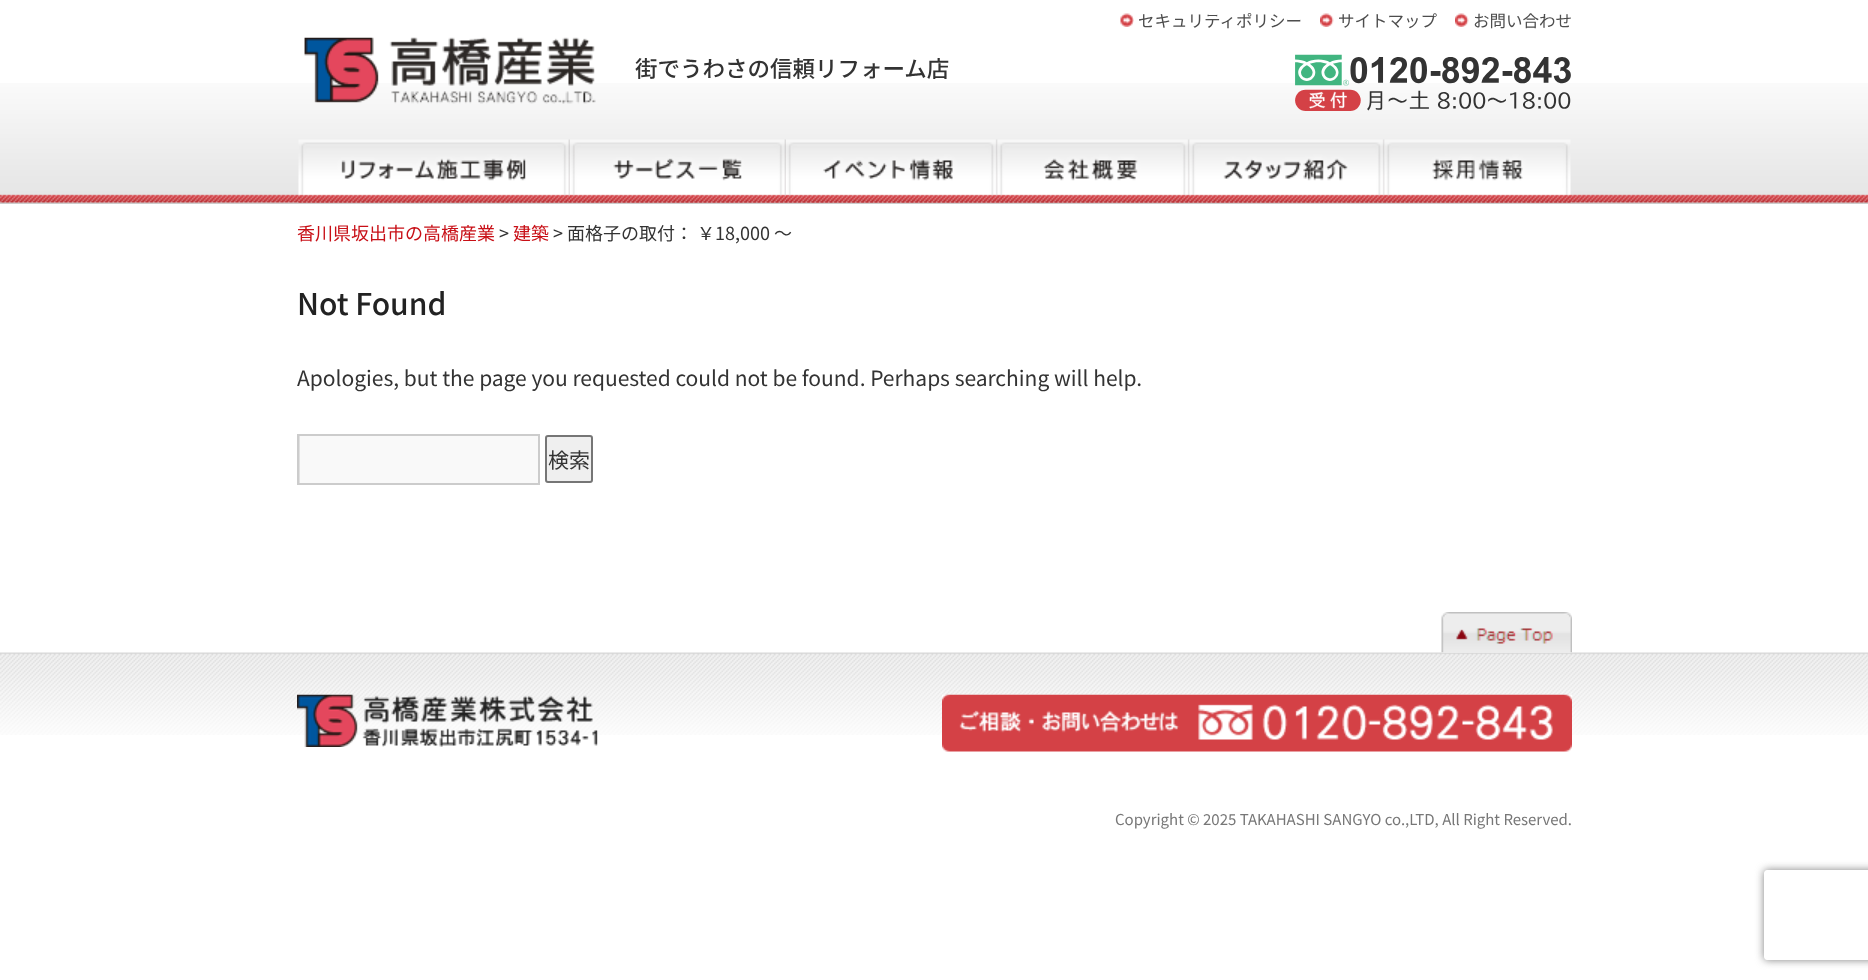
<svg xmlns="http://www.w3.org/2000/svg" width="1868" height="980">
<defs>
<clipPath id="clip1"><rect x="299" y="435" width="240" height="48"/></clipPath>
<clipPath id="clip2"><path d="M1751 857h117v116h-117zm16 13h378c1.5 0 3 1.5 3 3v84c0 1.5-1.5 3-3 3h-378c-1.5 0-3-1.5-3-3v-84c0-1.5 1.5-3 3-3z" clip-rule="evenodd"/></clipPath>
</defs>
<rect width="100%" height="100%" fill="#fff"/>
<image x="0" y="83" width="1868" height="121" href="media/1.png"/>
<image x="1120" y="13" width="14" height="14" href="media/2.png"/>
<text x="1138" y="27" style="font-family:Noto Sans JP;font-size:16.5px;fill:#4d4d4d">セキュリティポリシー</text>
<image x="1320" y="13" width="14" height="14" href="media/3.png"/>
<text x="1338" y="27" style="font-family:Noto Sans JP;font-size:16.5px;fill:#4d4d4d">サイトマップ</text>
<image x="1455" y="13" width="14" height="14" href="media/4.png"/>
<text x="1473" y="27" style="font-family:Noto Sans JP;font-size:16.5px;fill:#4d4d4d">お問い合わせ</text>
<image x="1295" y="54" width="276" height="57" href="media/5.png"/>
<image x="304" y="37" width="292" height="67" href="media/6.png"/>
<text x="635" y="77" style="font-family:Noto Sans JP;font-size:22.5px;font-weight:500;fill:#333">街でうわさの信頼リフォーム店</text>
<image x="298" y="139" width="272" height="64" href="media/7.png"/>
<image x="570" y="139" width="216" height="64" href="media/8.png"/>
<image x="786" y="139" width="212" height="64" href="media/9.png"/>
<image x="997" y="139" width="193" height="64" href="media/10.png"/>
<image x="1189" y="139" width="196" height="64" href="media/11.png"/>
<image x="1384" y="139" width="187" height="64" href="media/12.png"/>
<text x="297" y="240" style="font-family:Noto Sans JP;font-size:18px;fill:#c80f16">香川県坂出市の高橋産業</text>
<text x="499" y="240" style="font-family:Noto Sans JP;font-size:18px;fill:#333">&gt;</text>
<text x="513" y="240" style="font-family:Noto Sans JP;font-size:18px;fill:#c80f16">建築</text>
<text x="553" y="240" style="font-family:Noto Sans JP;font-size:18px;fill:#333">&gt; 面格子の取付： ￥18,000 ～</text>
<text x="297" y="315" style="font-family:Noto Sans JP;font-size:30px;font-weight:500;fill:#222">Not Found</text>
<text x="297" y="386" style="font-family:Noto Sans JP;font-size:21px;fill:#333">Apologies, but the page you requested could not be found. Perhaps searching will help.</text>
<rect x="300" y="436" width="238" height="47" fill="#f9f9f9"/>
<g clip-path="url(#clip1)">
<path d="M150 286h537v346h-537zm150 150h240v48h-240z" fill="#e0e0e0" fill-rule="evenodd"/>
</g>
<rect x="298" y="435" width="241" height="49" fill="none" stroke="#ccc" stroke-width="2"/>
<rect x="546" y="436" width="46" height="46" rx="2" fill="#efefef" stroke="#767676" stroke-width="2"/>
<text x="548" y="468" style="font-family:Noto Sans JP;font-size:21px;fill:#333">検索</text>
<image x="0" y="652" width="1868" height="83" href="media/14.png"/>
<image x="1441" y="612" width="131" height="41" href="media/13.png"/>
<image x="297" y="694" width="301" height="53" href="media/15.png"/>
<image x="942" y="694" width="630" height="58" href="media/16.png"/>
<text x="1115" y="825" style="font-family:Noto Sans JP;font-size:15px;fill:#777">Copyright © 2025 TAKAHASHI SANGYO co.,LTD, All Right Reserved.</text>
<g clip-path="url(#clip2)">
<rect x="1764" y="870" width="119" height="90" rx="3" fill="#808080" filter="blur(4px)"/>
</g>
</svg>
